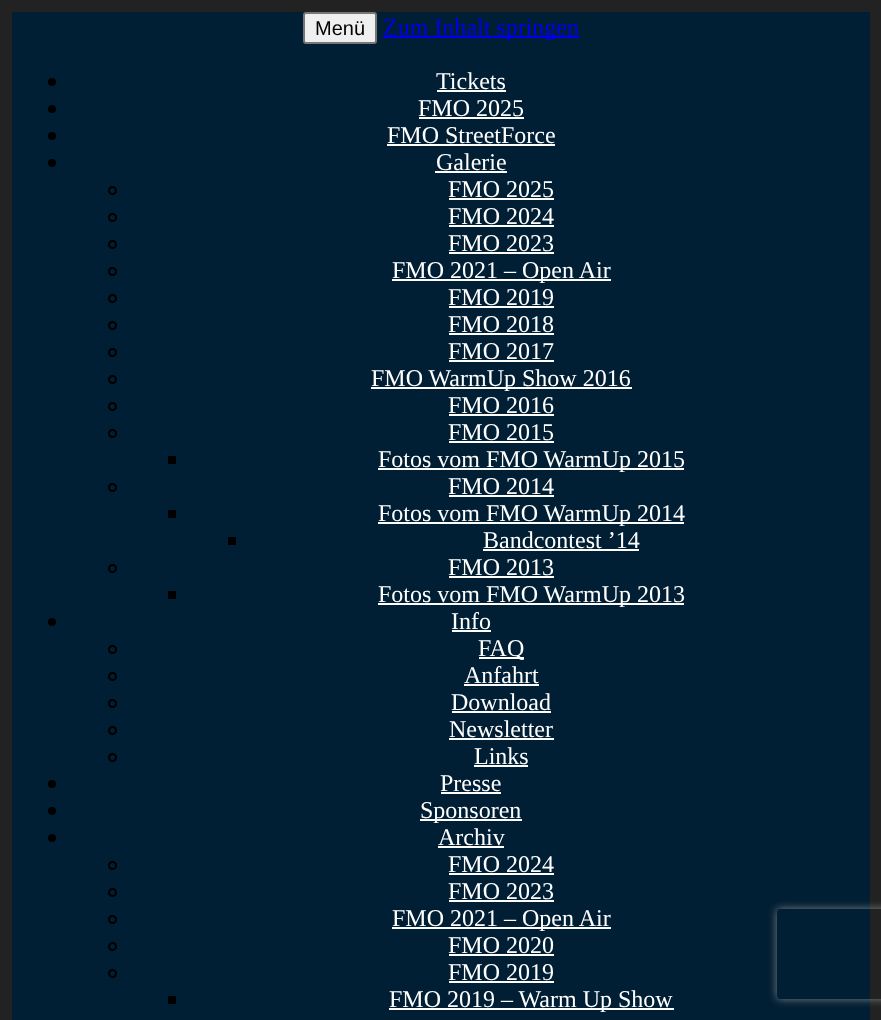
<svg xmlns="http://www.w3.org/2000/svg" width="881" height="1020">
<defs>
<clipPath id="clip1"><path d="M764 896h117v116h-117zm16 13h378c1.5 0 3 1.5 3 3v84c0 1.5-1.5 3-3 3h-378c-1.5 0-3-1.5-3-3v-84c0-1.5 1.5-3 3-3z" clip-rule="evenodd"/></clipPath>
</defs>
<rect width="100%" height="100%" fill="#222"/>
<rect x="12" y="12" width="858" height="1008" fill="#001f34"/>
<rect x="304" y="13" width="72" height="30" rx="2" fill="#efefef" stroke="#767676" stroke-width="2"/>
<text x="315" y="35" style="font-family:Liberation Sans;font-size:20px;fill:#000">Menü</text>
<rect x="383" y="36" width="196" height="2" fill="#00e"/>
<text x="383" y="35" style="font-family:Liberation Serif;font-size:24px;fill:#00e">Zum Inhalt springen</text>
<circle cx="52" cy="82" r="4" fill="#000"/>
<text x="436" y="89" style="font-family:Liberation Serif;font-size:24px;fill:#fff">Tickets</text>
<rect x="437" y="90" width="69" height="2" fill="#fff"/>
<circle cx="52" cy="109" r="4" fill="#000"/>
<text x="418" y="116" style="font-family:Liberation Serif;font-size:24px;fill:#fff">FMO 2025</text>
<rect x="419" y="117" width="105" height="2" fill="#fff"/>
<circle cx="52" cy="136" r="4" fill="#000"/>
<text x="387" y="143" style="font-family:Liberation Serif;font-size:24px;fill:#fff">FMO StreetForce</text>
<rect x="387" y="144" width="168" height="2" fill="#fff"/>
<circle cx="52" cy="163" r="4" fill="#000"/>
<text x="436" y="170" style="font-family:Liberation Serif;font-size:24px;fill:#fff">Galerie</text>
<rect x="435" y="171" width="72" height="2" fill="#fff"/>
<circle cx="112.5" cy="190.5" r="3.5" fill="none" stroke="#000" stroke-width="2"/>
<text x="448" y="197" style="font-family:Liberation Serif;font-size:24px;fill:#fff">FMO 2025</text>
<rect x="449" y="198" width="105" height="2" fill="#fff"/>
<circle cx="112.5" cy="217.5" r="3.5" fill="none" stroke="#000" stroke-width="2"/>
<text x="448" y="224" style="font-family:Liberation Serif;font-size:24px;fill:#fff">FMO 2024</text>
<rect x="449" y="225" width="105" height="2" fill="#fff"/>
<circle cx="112.5" cy="244.5" r="3.5" fill="none" stroke="#000" stroke-width="2"/>
<text x="448" y="251" style="font-family:Liberation Serif;font-size:24px;fill:#fff">FMO 2023</text>
<rect x="449" y="252" width="105" height="2" fill="#fff"/>
<circle cx="112.5" cy="271.5" r="3.5" fill="none" stroke="#000" stroke-width="2"/>
<rect x="392" y="279" width="219" height="2" fill="#fff"/>
<text x="392" y="278" style="font-family:Liberation Serif;font-size:24px;fill:#fff">FMO 2021 – Open Air</text>
<circle cx="112.5" cy="298.5" r="3.5" fill="none" stroke="#000" stroke-width="2"/>
<text x="448" y="305" style="font-family:Liberation Serif;font-size:24px;fill:#fff">FMO 2019</text>
<rect x="449" y="306" width="105" height="2" fill="#fff"/>
<circle cx="112.5" cy="325.5" r="3.5" fill="none" stroke="#000" stroke-width="2"/>
<text x="448" y="332" style="font-family:Liberation Serif;font-size:24px;fill:#fff">FMO 2018</text>
<rect x="449" y="333" width="105" height="2" fill="#fff"/>
<circle cx="112.5" cy="352.5" r="3.5" fill="none" stroke="#000" stroke-width="2"/>
<text x="448" y="359" style="font-family:Liberation Serif;font-size:24px;fill:#fff">FMO 2017</text>
<rect x="449" y="360" width="105" height="2" fill="#fff"/>
<circle cx="112.5" cy="379.5" r="3.5" fill="none" stroke="#000" stroke-width="2"/>
<rect x="371" y="387" width="261" height="2" fill="#fff"/>
<text x="371" y="386" style="font-family:Liberation Serif;font-size:24px;fill:#fff">FMO WarmUp Show 2016</text>
<circle cx="112.5" cy="406.5" r="3.5" fill="none" stroke="#000" stroke-width="2"/>
<text x="448" y="413" style="font-family:Liberation Serif;font-size:24px;fill:#fff">FMO 2016</text>
<rect x="449" y="414" width="105" height="2" fill="#fff"/>
<circle cx="112.5" cy="433.5" r="3.5" fill="none" stroke="#000" stroke-width="2"/>
<text x="448" y="440" style="font-family:Liberation Serif;font-size:24px;fill:#fff">FMO 2015</text>
<rect x="449" y="441" width="105" height="2" fill="#fff"/>
<rect x="168" y="456" width="8" height="8" fill="#000"/>
<rect x="378" y="468" width="306" height="2" fill="#fff"/>
<text x="378" y="467" style="font-family:Liberation Serif;font-size:24px;fill:#fff">Fotos vom FMO WarmUp 2015</text>
<circle cx="112.5" cy="487.5" r="3.5" fill="none" stroke="#000" stroke-width="2"/>
<text x="448" y="494" style="font-family:Liberation Serif;font-size:24px;fill:#fff">FMO 2014</text>
<rect x="449" y="495" width="105" height="2" fill="#fff"/>
<rect x="168" y="510" width="8" height="8" fill="#000"/>
<rect x="378" y="522" width="306" height="2" fill="#fff"/>
<text x="378" y="521" style="font-family:Liberation Serif;font-size:24px;fill:#fff">Fotos vom FMO WarmUp 2014</text>
<rect x="228" y="537" width="8" height="8" fill="#000"/>
<text x="483" y="548" style="font-family:Liberation Serif;font-size:24px;fill:#fff">Bandcontest ’14</text>
<rect x="483" y="549" width="156" height="2" fill="#fff"/>
<circle cx="112.5" cy="568.5" r="3.5" fill="none" stroke="#000" stroke-width="2"/>
<text x="448" y="575" style="font-family:Liberation Serif;font-size:24px;fill:#fff">FMO 2013</text>
<rect x="449" y="576" width="105" height="2" fill="#fff"/>
<rect x="168" y="591" width="8" height="8" fill="#000"/>
<rect x="378" y="603" width="306" height="2" fill="#fff"/>
<text x="378" y="602" style="font-family:Liberation Serif;font-size:24px;fill:#fff">Fotos vom FMO WarmUp 2013</text>
<circle cx="52" cy="622" r="4" fill="#000"/>
<text x="451" y="629" style="font-family:Liberation Serif;font-size:24px;fill:#fff">Info</text>
<rect x="452" y="630" width="39" height="2" fill="#fff"/>
<circle cx="112.5" cy="649.5" r="3.5" fill="none" stroke="#000" stroke-width="2"/>
<rect x="479" y="657" width="45" height="2" fill="#fff"/>
<text x="478" y="656" style="font-family:Liberation Serif;font-size:24px;fill:#fff">FAQ</text>
<circle cx="112.5" cy="676.5" r="3.5" fill="none" stroke="#000" stroke-width="2"/>
<text x="464" y="683" style="font-family:Liberation Serif;font-size:24px;fill:#fff">Anfahrt</text>
<rect x="464" y="684" width="75" height="2" fill="#fff"/>
<circle cx="112.5" cy="703.5" r="3.5" fill="none" stroke="#000" stroke-width="2"/>
<text x="451" y="710" style="font-family:Liberation Serif;font-size:24px;fill:#fff">Download</text>
<rect x="452" y="711" width="99" height="2" fill="#fff"/>
<circle cx="112.5" cy="730.5" r="3.5" fill="none" stroke="#000" stroke-width="2"/>
<text x="449" y="737" style="font-family:Liberation Serif;font-size:24px;fill:#fff">Newsletter</text>
<rect x="449" y="738" width="105" height="2" fill="#fff"/>
<circle cx="112.5" cy="757.5" r="3.5" fill="none" stroke="#000" stroke-width="2"/>
<text x="474" y="764" style="font-family:Liberation Serif;font-size:24px;fill:#fff">Links</text>
<rect x="474" y="765" width="54" height="2" fill="#fff"/>
<circle cx="52" cy="784" r="4" fill="#000"/>
<text x="440" y="791" style="font-family:Liberation Serif;font-size:24px;fill:#fff">Presse</text>
<rect x="441" y="792" width="60" height="2" fill="#fff"/>
<circle cx="52" cy="811" r="4" fill="#000"/>
<rect x="420" y="819" width="102" height="2" fill="#fff"/>
<text x="420" y="818" style="font-family:Liberation Serif;font-size:24px;fill:#fff">Sponsoren</text>
<circle cx="52" cy="838" r="4" fill="#000"/>
<text x="438" y="845" style="font-family:Liberation Serif;font-size:24px;fill:#fff">Archiv</text>
<rect x="438" y="846" width="66" height="2" fill="#fff"/>
<circle cx="112.5" cy="865.5" r="3.5" fill="none" stroke="#000" stroke-width="2"/>
<text x="448" y="872" style="font-family:Liberation Serif;font-size:24px;fill:#fff">FMO 2024</text>
<rect x="449" y="873" width="105" height="2" fill="#fff"/>
<circle cx="112.5" cy="892.5" r="3.5" fill="none" stroke="#000" stroke-width="2"/>
<text x="448" y="899" style="font-family:Liberation Serif;font-size:24px;fill:#fff">FMO 2023</text>
<rect x="449" y="900" width="105" height="2" fill="#fff"/>
<circle cx="112.5" cy="919.5" r="3.5" fill="none" stroke="#000" stroke-width="2"/>
<rect x="392" y="927" width="219" height="2" fill="#fff"/>
<text x="392" y="926" style="font-family:Liberation Serif;font-size:24px;fill:#fff">FMO 2021 – Open Air</text>
<circle cx="112.5" cy="946.5" r="3.5" fill="none" stroke="#000" stroke-width="2"/>
<text x="448" y="953" style="font-family:Liberation Serif;font-size:24px;fill:#fff">FMO 2020</text>
<rect x="449" y="954" width="105" height="2" fill="#fff"/>
<circle cx="112.5" cy="973.5" r="3.5" fill="none" stroke="#000" stroke-width="2"/>
<text x="448" y="980" style="font-family:Liberation Serif;font-size:24px;fill:#fff">FMO 2019</text>
<rect x="449" y="981" width="105" height="2" fill="#fff"/>
<rect x="168" y="996" width="8" height="8" fill="#000"/>
<rect x="389" y="1008" width="285" height="2" fill="#fff"/>
<text x="389" y="1007" style="font-family:Liberation Serif;font-size:24px;fill:#fff">FMO 2019 – Warm Up Show</text>
<g clip-path="url(#clip1)">
<rect x="777" y="909" width="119" height="90" rx="3" fill="#808080" filter="blur(4px)"/>
</g>
</svg>
